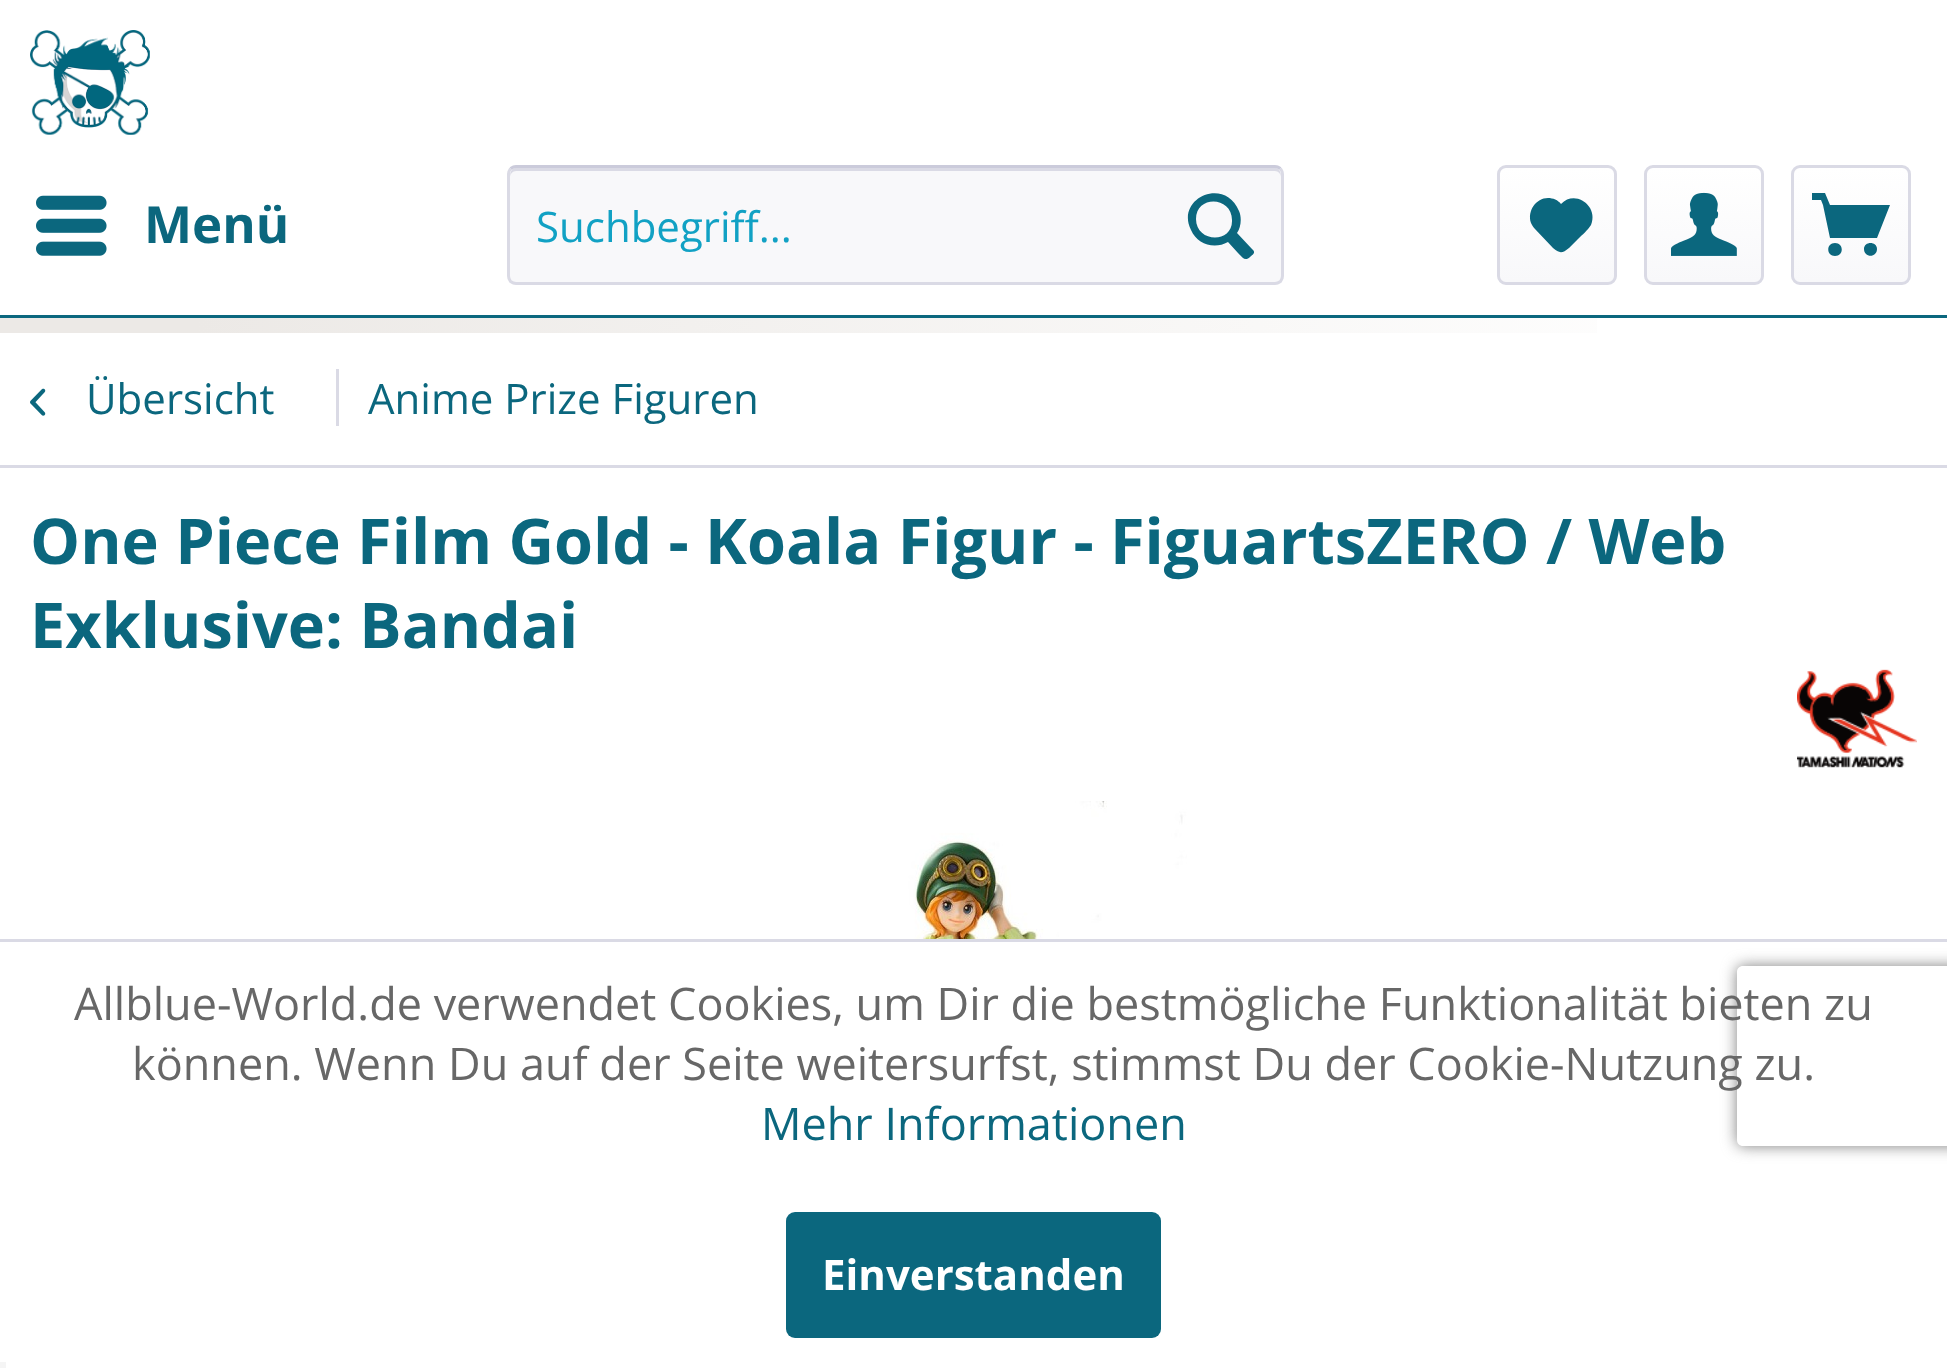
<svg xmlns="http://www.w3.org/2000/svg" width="1947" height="1368">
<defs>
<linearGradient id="g1" gradientUnits="userSpaceOnUse" x1="0" y1="684" x2="1947" y2="684"><stop offset="0.1" stop-color="#ece9e6"/><stop offset="0.9" stop-color="#fff"/></linearGradient>
<linearGradient id="g2" gradientUnits="userSpaceOnUse" x1="1557" y1="168" x2="1557" y2="282"><stop offset="0" stop-color="#fff"/><stop offset="1" stop-color="#f8f8fa"/></linearGradient>
<linearGradient id="g3" gradientUnits="userSpaceOnUse" x1="1704" y1="168" x2="1704" y2="282"><stop offset="0" stop-color="#fff"/><stop offset="1" stop-color="#f8f8fa"/></linearGradient>
<linearGradient id="g4" gradientUnits="userSpaceOnUse" x1="1851" y1="168" x2="1851" y2="282"><stop offset="0" stop-color="#fff"/><stop offset="1" stop-color="#f8f8fa"/></linearGradient>
<clipPath id="clip1"><path d="M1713 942h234v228h-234zm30 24h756c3.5 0 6 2.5 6 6v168c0 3.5-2.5 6-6 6h-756c-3.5 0-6-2.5-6-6v-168c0-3.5 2.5-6 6-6z" clip-rule="evenodd"/></clipPath>
</defs>
<rect width="100%" height="100%" fill="#fff"/>
<rect y="318" width="1597" height="15" fill="url(#g1)"/>
<rect y="315" width="1947" height="3" fill="#0b677e"/>
<image x="30" y="30" width="120" height="105" href="media/1.png"/>
<image x="36" y="195" width="71" height="61" href="media/2.png"/>
<text x="144" y="243" style="font-family:Open Sans;font-size:51px;font-weight:bold;fill:#0b677e">Menü</text>
<rect x="507" y="165" width="777" height="120" rx="9" fill="#f8f8fa"/>
<path d="M516 171h759c3 0 6 3 6 6c0-4-1-9-6-9h-759c-5 0-6 5-6 9c0-3 3-6 6-6z" fill="#dadae5"/>
<path d="M510.5 168.5c1.5-1 3.5-2 5.5-2h759c2 0 4 1 5.5 2" fill="none" stroke="#cbcbdb" stroke-width="3"/>
<path d="M1280.5 168.5c1 1.5 2 3.5 2 5.5v102c0 2-1 4-2 5.5c-1.5 1-3.5 2-5.5 2h-759c-2 0-4-1-5.5-2c-1-1.5-2-3.5-2-5.5v-102c0-2 1-4 2-5.5" fill="none" stroke="#dadae5" stroke-width="3"/>
<text x="536" y="242" style="font-family:Open Sans;font-size:42px;fill:#11a1c4">Suchbegriff...</text>
<path d="M1252 249l-15-16c4-6 5-15 2-22c-14-35-64-13-48 19c6 14 23 20 37 12l10 11c4 4 7 9 12 4c2-2 6-4 3-7zm-56-30c0-24 36-23 36 1c1 24-36 23-36-1z" fill="#0b677e"/>
<rect x="1500" y="168" width="114" height="114" rx="6" fill="url(#g2)"/>
<rect x="1498.5" y="166.5" width="117" height="117" rx="7.5" fill="none" stroke="#dadae5" stroke-width="3"/>
<path d="M1548 198c-12 0-21 13-17 25c1 2 2 4 4 6l18 19c6 5 9 6 16 0l9-9c4-4 10-9 13-14c8-19-16-36-30-21c-3-4-8-6-13-6z" fill="#0b677e"/>
<rect x="1647" y="168" width="114" height="114" rx="6" fill="url(#g3)"/>
<rect x="1645.5" y="166.5" width="117" height="117" rx="7.5" fill="none" stroke="#dadae5" stroke-width="3"/>
<image x="1671" y="192" width="66" height="64" href="media/3.png"/>
<rect x="1794" y="168" width="114" height="114" rx="6" fill="url(#g4)"/>
<rect x="1792.5" y="166.5" width="117" height="117" rx="7.5" fill="none" stroke="#dadae5" stroke-width="3"/>
<path d="M1830 238h47l13-33h-60l-5-12h-13v7h9l2 5zm5 5c-9 0-9 13 0 13c9 0 9-13 0-13zm42 6c0 9-13 9-13 0c0-8 13-8 13 0z" fill="#0b677e"/>
<rect y="465" width="1947" height="3" fill="#dadae5"/>
<image x="30" y="388" width="16" height="28" href="media/4.png"/>
<text x="86" y="414" style="font-family:Open Sans;font-size:42px;fill:#0b677e">Übersicht</text>
<rect x="336" y="369" width="3" height="57" fill="#dadae5"/>
<text x="368" y="414" style="font-family:Open Sans;font-size:42px;fill:#0b677e">Anime Prize Figuren</text>
<text x="30" y="564" style="font-family:Open Sans;font-size:63px;font-weight:bold;fill:#0b677e">One Piece Film Gold - Koala Figur - FiguartsZERO / Web</text>
<text x="30" y="648" style="font-family:Open Sans;font-size:63px;font-weight:bold;fill:#0b677e">Exklusive: Bandai</text>
<image x="1797" y="669" width="120" height="99" href="media/5.png"/>
<image x="851" y="801" width="424" height="138" href="media/6.png"/>
<g clip-path="url(#clip1)">
<rect x="1737" y="966" width="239" height="180" rx="6" fill="#808080" filter="blur(7.5px)"/>
</g>
<rect y="939" width="1947" height="3" fill="#dadae5"/>
<text x="74" y="1020" style="font-family:Open Sans;font-size:45px;fill:#676767">Allblue-World.de verwendet Cookies, um Dir die bestmögliche Funktionalität bieten zu</text>
<text x="132" y="1080" style="font-family:Open Sans;font-size:45px;fill:#676767">können. Wenn Du auf der Seite weitersurfst, stimmst Du der Cookie-Nutzung zu.</text>
<text x="761" y="1140" style="font-family:Open Sans;font-size:45px;fill:#0b677e">Mehr Informationen</text>
<rect x="786" y="1212" width="375" height="126" rx="9" fill="#0b677e"/>
<text x="822" y="1290" style="font-family:Open Sans;font-size:42px;font-weight:bold;fill:#fff">Einverstanden</text>
<rect y="1362" width="6" height="6" fill="#f5f5f5"/>
</svg>
